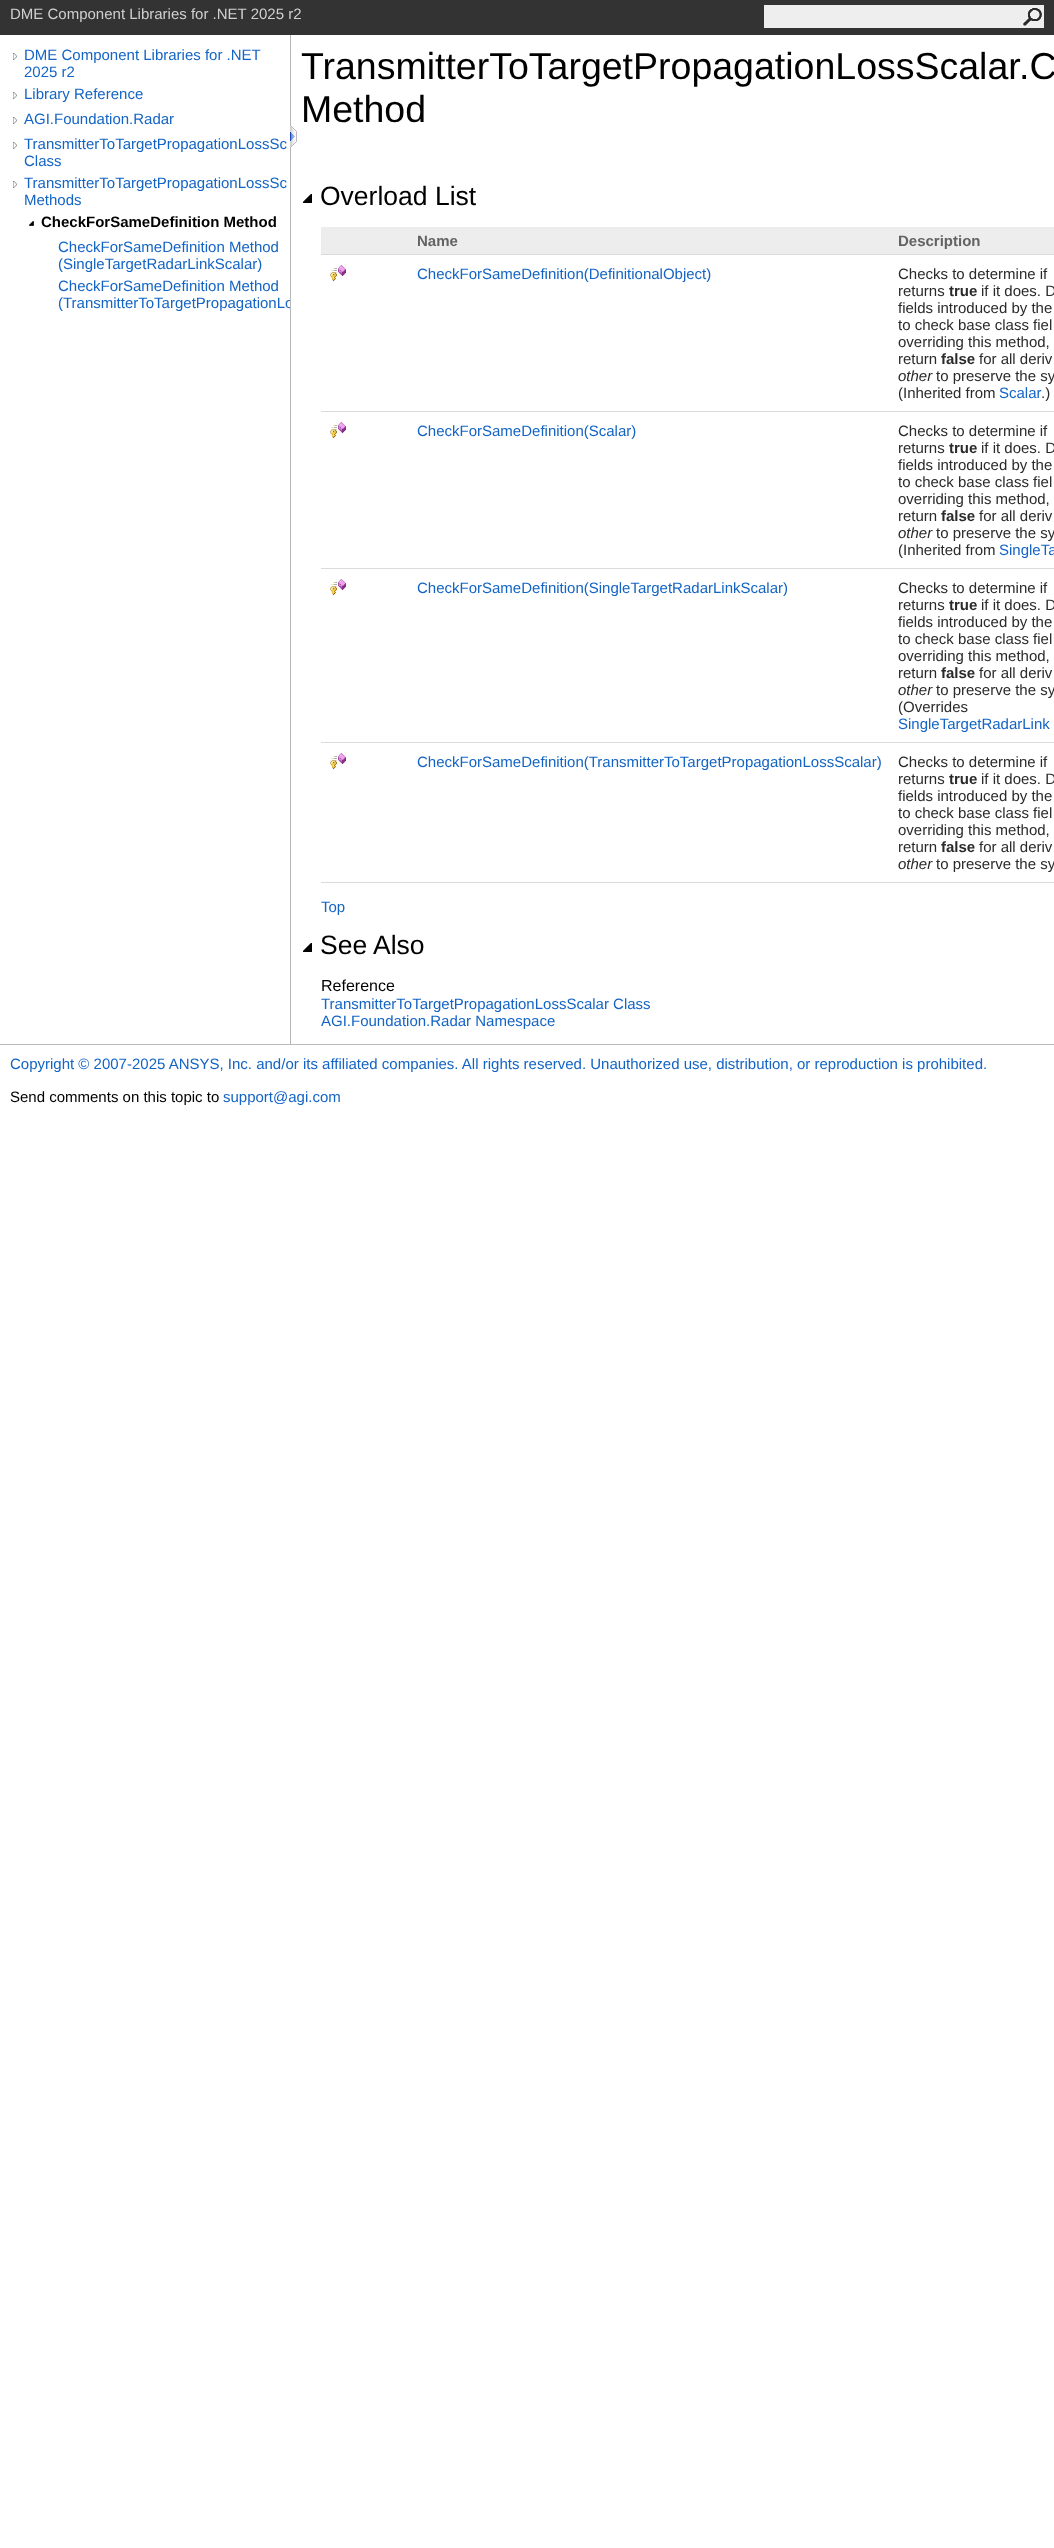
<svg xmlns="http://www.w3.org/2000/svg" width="1054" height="2548">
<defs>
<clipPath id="clip1"><rect x="58" y="238" width="232" height="34"/></clipPath>
<clipPath id="clip2"><rect x="58" y="277" width="232" height="34"/></clipPath>
</defs>
<rect width="100%" height="100%" fill="#fff"/>
<rect width="1054" height="35" fill="#333"/>
<text x="10" y="19" style="font-family:Liberation Sans;font-size:15px;fill:#d0d0d0">DME Component Libraries for .NET 2025 r2</text>
<rect x="764" y="5" width="280" height="23" fill="#eee"/>
<image x="1023" y="8" width="19" height="18" href="media/1.png"/>
<rect x="290" y="35" width="1" height="1009" fill="#b6b6b6"/>
<image x="13" y="53" width="4" height="7" href="media/2.png"/>
<text x="24" y="60" style="font-family:Liberation Sans;font-size:15px;fill:#1364c4">DME Component Libraries for .NET</text>
<text x="24" y="77" style="font-family:Liberation Sans;font-size:15px;fill:#1364c4">2025 r2</text>
<image x="13" y="92" width="4" height="7" href="media/2.png"/>
<text x="24" y="99" style="font-family:Liberation Sans;font-size:15px;fill:#1364c4">Library Reference</text>
<image x="13" y="117" width="4" height="7" href="media/2.png"/>
<text x="24" y="124" style="font-family:Liberation Sans;font-size:15px;fill:#1364c4">AGI.Foundation.Radar</text>
<image x="13" y="142" width="4" height="7" href="media/2.png"/>
<text x="24" y="149" style="font-family:Liberation Sans;font-size:15px;fill:#1364c4">TransmitterToTargetPropagationLossSc</text>
<text x="24" y="166" style="font-family:Liberation Sans;font-size:15px;fill:#1364c4">Class</text>
<image x="13" y="181" width="4" height="7" href="media/2.png"/>
<text x="24" y="188" style="font-family:Liberation Sans;font-size:15px;fill:#1364c4">TransmitterToTargetPropagationLossSc</text>
<text x="24" y="205" style="font-family:Liberation Sans;font-size:15px;fill:#1364c4">Methods</text>
<image x="29" y="221" width="5" height="5" href="media/3.png"/>
<text x="41" y="227" style="font-family:Liberation Sans;font-size:15px;font-weight:bold;fill:#000">CheckForSameDefinition Method</text>
<text x="58" y="252" style="font-family:Liberation Sans;font-size:15px;fill:#1364c4">CheckForSameDefinition Method</text>
<g clip-path="url(#clip1)">
<text x="58" y="269" style="font-family:Liberation Sans;font-size:15px;fill:#1364c4">(SingleTargetRadarLinkScalar)</text>
</g>
<text x="58" y="291" style="font-family:Liberation Sans;font-size:15px;fill:#1364c4">CheckForSameDefinition Method</text>
<g clip-path="url(#clip2)">
<text x="58" y="308" style="font-family:Liberation Sans;font-size:15px;fill:#1364c4">(TransmitterToTargetPropagationLo</text>
</g>
<image x="290" y="125" width="7" height="23" href="media/4.png"/>
<text x="301" y="79" style="font-family:Liberation Sans;font-size:37.5px;fill:#000">TransmitterToTargetPropagationLossScalar</text>
<text x="1019" y="79" style="font-family:Liberation Sans;font-size:37.5px;fill:#000">.C</text>
<text x="301" y="122" style="font-family:Liberation Sans;font-size:37.5px;fill:#000">Method</text>
<image x="303" y="194" width="9" height="9" href="media/5.png"/>
<text x="320" y="205" style="font-family:Liberation Sans;font-size:26.5px;fill:#000">Overload List</text>
<rect x="321" y="227" width="733" height="27" fill="#ededed"/>
<text x="417" y="246" style="font-family:Liberation Sans;font-size:15px;font-weight:bold;fill:#636363">Name</text>
<rect x="321" y="254" width="733" height="1" fill="#dbdbdb"/>
<text x="898" y="246" style="font-family:Liberation Sans;font-size:15px;font-weight:bold;fill:#636363">Description</text>
<image x="330" y="265" width="16" height="16" href="media/6.png"/>
<text x="417" y="279" style="font-family:Liberation Sans;font-size:15px;fill:#1364c4">CheckForSameDefinition(DefinitionalObject)</text>
<rect x="321" y="411" width="733" height="1" fill="#dbdbdb"/>
<text x="898" y="279" style="font-family:Liberation Sans;font-size:15px;fill:#2a2a2a">Checks to determine if</text>
<text x="898" y="296" style="font-family:Liberation Sans;font-size:15px;fill:#2a2a2a">returns</text>
<text x="949" y="296" style="font-family:Liberation Sans;font-size:15px;font-weight:bold;fill:#2a2a2a">true</text>
<text x="981" y="296" style="font-family:Liberation Sans;font-size:15px;fill:#2a2a2a">if it does. D</text>
<text x="898" y="313" style="font-family:Liberation Sans;font-size:15px;fill:#2a2a2a">fields introduced by the</text>
<text x="898" y="330" style="font-family:Liberation Sans;font-size:15px;fill:#2a2a2a">to check base class fiel</text>
<text x="898" y="347" style="font-family:Liberation Sans;font-size:15px;fill:#2a2a2a">overriding this method,</text>
<text x="898" y="364" style="font-family:Liberation Sans;font-size:15px;fill:#2a2a2a">return</text>
<text x="941" y="364" style="font-family:Liberation Sans;font-size:15px;font-weight:bold;fill:#2a2a2a">false</text>
<text x="979" y="364" style="font-family:Liberation Sans;font-size:15px;fill:#2a2a2a">for all deriv</text>
<text x="898" y="381" style="font-family:Liberation Sans;font-size:15px;font-style:italic;fill:#2a2a2a">other</text>
<text x="936" y="381" style="font-family:Liberation Sans;font-size:15px;fill:#2a2a2a">to preserve the sy</text>
<text x="898" y="398" style="font-family:Liberation Sans;font-size:15px;fill:#2a2a2a">(Inherited from</text>
<text x="999" y="398" style="font-family:Liberation Sans;font-size:15px;fill:#1364c4">Scalar</text>
<text x="1041" y="398" style="font-family:Liberation Sans;font-size:15px;fill:#2a2a2a">.)</text>
<image x="330" y="422" width="16" height="16" href="media/6.png"/>
<text x="417" y="436" style="font-family:Liberation Sans;font-size:15px;fill:#1364c4">CheckForSameDefinition(Scalar)</text>
<rect x="321" y="568" width="733" height="1" fill="#dbdbdb"/>
<text x="898" y="436" style="font-family:Liberation Sans;font-size:15px;fill:#2a2a2a">Checks to determine if</text>
<text x="898" y="453" style="font-family:Liberation Sans;font-size:15px;fill:#2a2a2a">returns</text>
<text x="949" y="453" style="font-family:Liberation Sans;font-size:15px;font-weight:bold;fill:#2a2a2a">true</text>
<text x="981" y="453" style="font-family:Liberation Sans;font-size:15px;fill:#2a2a2a">if it does. D</text>
<text x="898" y="470" style="font-family:Liberation Sans;font-size:15px;fill:#2a2a2a">fields introduced by the</text>
<text x="898" y="487" style="font-family:Liberation Sans;font-size:15px;fill:#2a2a2a">to check base class fiel</text>
<text x="898" y="504" style="font-family:Liberation Sans;font-size:15px;fill:#2a2a2a">overriding this method,</text>
<text x="898" y="521" style="font-family:Liberation Sans;font-size:15px;fill:#2a2a2a">return</text>
<text x="941" y="521" style="font-family:Liberation Sans;font-size:15px;font-weight:bold;fill:#2a2a2a">false</text>
<text x="979" y="521" style="font-family:Liberation Sans;font-size:15px;fill:#2a2a2a">for all deriv</text>
<text x="898" y="538" style="font-family:Liberation Sans;font-size:15px;font-style:italic;fill:#2a2a2a">other</text>
<text x="936" y="538" style="font-family:Liberation Sans;font-size:15px;fill:#2a2a2a">to preserve the sy</text>
<text x="898" y="555" style="font-family:Liberation Sans;font-size:15px;fill:#2a2a2a">(Inherited from</text>
<text x="999" y="555" style="font-family:Liberation Sans;font-size:15px;fill:#1364c4">SingleTa</text>
<image x="330" y="579" width="16" height="16" href="media/6.png"/>
<text x="417" y="593" style="font-family:Liberation Sans;font-size:15px;fill:#1364c4">CheckForSameDefinition(SingleTargetRadarLinkScalar)</text>
<rect x="321" y="742" width="733" height="1" fill="#dbdbdb"/>
<text x="898" y="593" style="font-family:Liberation Sans;font-size:15px;fill:#2a2a2a">Checks to determine if</text>
<text x="898" y="610" style="font-family:Liberation Sans;font-size:15px;fill:#2a2a2a">returns</text>
<text x="949" y="610" style="font-family:Liberation Sans;font-size:15px;font-weight:bold;fill:#2a2a2a">true</text>
<text x="981" y="610" style="font-family:Liberation Sans;font-size:15px;fill:#2a2a2a">if it does. D</text>
<text x="898" y="627" style="font-family:Liberation Sans;font-size:15px;fill:#2a2a2a">fields introduced by the</text>
<text x="898" y="644" style="font-family:Liberation Sans;font-size:15px;fill:#2a2a2a">to check base class fiel</text>
<text x="898" y="661" style="font-family:Liberation Sans;font-size:15px;fill:#2a2a2a">overriding this method,</text>
<text x="898" y="678" style="font-family:Liberation Sans;font-size:15px;fill:#2a2a2a">return</text>
<text x="941" y="678" style="font-family:Liberation Sans;font-size:15px;font-weight:bold;fill:#2a2a2a">false</text>
<text x="979" y="678" style="font-family:Liberation Sans;font-size:15px;fill:#2a2a2a">for all deriv</text>
<text x="898" y="695" style="font-family:Liberation Sans;font-size:15px;font-style:italic;fill:#2a2a2a">other</text>
<text x="936" y="695" style="font-family:Liberation Sans;font-size:15px;fill:#2a2a2a">to preserve the sy</text>
<text x="898" y="712" style="font-family:Liberation Sans;font-size:15px;fill:#2a2a2a">(Overrides</text>
<text x="898" y="729" style="font-family:Liberation Sans;font-size:15px;fill:#1364c4">SingleTargetRadarLink</text>
<image x="330" y="753" width="16" height="16" href="media/6.png"/>
<text x="417" y="767" style="font-family:Liberation Sans;font-size:15px;fill:#1364c4">CheckForSameDefinition(TransmitterToTargetPropagationLossScalar)</text>
<rect x="321" y="882" width="733" height="1" fill="#dbdbdb"/>
<text x="898" y="767" style="font-family:Liberation Sans;font-size:15px;fill:#2a2a2a">Checks to determine if</text>
<text x="898" y="784" style="font-family:Liberation Sans;font-size:15px;fill:#2a2a2a">returns</text>
<text x="949" y="784" style="font-family:Liberation Sans;font-size:15px;font-weight:bold;fill:#2a2a2a">true</text>
<text x="981" y="784" style="font-family:Liberation Sans;font-size:15px;fill:#2a2a2a">if it does. D</text>
<text x="898" y="801" style="font-family:Liberation Sans;font-size:15px;fill:#2a2a2a">fields introduced by the</text>
<text x="898" y="818" style="font-family:Liberation Sans;font-size:15px;fill:#2a2a2a">to check base class fiel</text>
<text x="898" y="835" style="font-family:Liberation Sans;font-size:15px;fill:#2a2a2a">overriding this method,</text>
<text x="898" y="852" style="font-family:Liberation Sans;font-size:15px;fill:#2a2a2a">return</text>
<text x="941" y="852" style="font-family:Liberation Sans;font-size:15px;font-weight:bold;fill:#2a2a2a">false</text>
<text x="979" y="852" style="font-family:Liberation Sans;font-size:15px;fill:#2a2a2a">for all deriv</text>
<text x="898" y="869" style="font-family:Liberation Sans;font-size:15px;font-style:italic;fill:#2a2a2a">other</text>
<text x="936" y="869" style="font-family:Liberation Sans;font-size:15px;fill:#2a2a2a">to preserve the sy</text>
<text x="321" y="912" style="font-family:Liberation Sans;font-size:15px;fill:#1364c4">Top</text>
<image x="303" y="943" width="9" height="9" href="media/5.png"/>
<text x="320" y="954" style="font-family:Liberation Sans;font-size:26.5px;fill:#000">See Also</text>
<text x="321" y="991" style="font-family:Liberation Sans;font-size:16px;fill:#000">Reference</text>
<text x="321" y="1009" style="font-family:Liberation Sans;font-size:15px;fill:#1364c4">TransmitterToTargetPropagationLossScalar Class</text>
<text x="321" y="1026" style="font-family:Liberation Sans;font-size:15px;fill:#1364c4">AGI.Foundation.Radar Namespace</text>
<rect y="1044" width="1054" height="1" fill="#bbb"/>
<text x="10" y="1069" style="font-family:Liberation Sans;font-size:15px;fill:#1364c4">Copyright © 2007-2025 ANSYS, Inc. and/or its affiliated companies. All rights reserved. Unauthorized use, distribution, or reproduction is prohibited.</text>
<text x="10" y="1102" style="font-family:Liberation Sans;font-size:15px;fill:#000">Send comments on this topic to</text>
<text x="223" y="1102" style="font-family:Liberation Sans;font-size:15px;fill:#1364c4">support@agi.com</text>
</svg>
